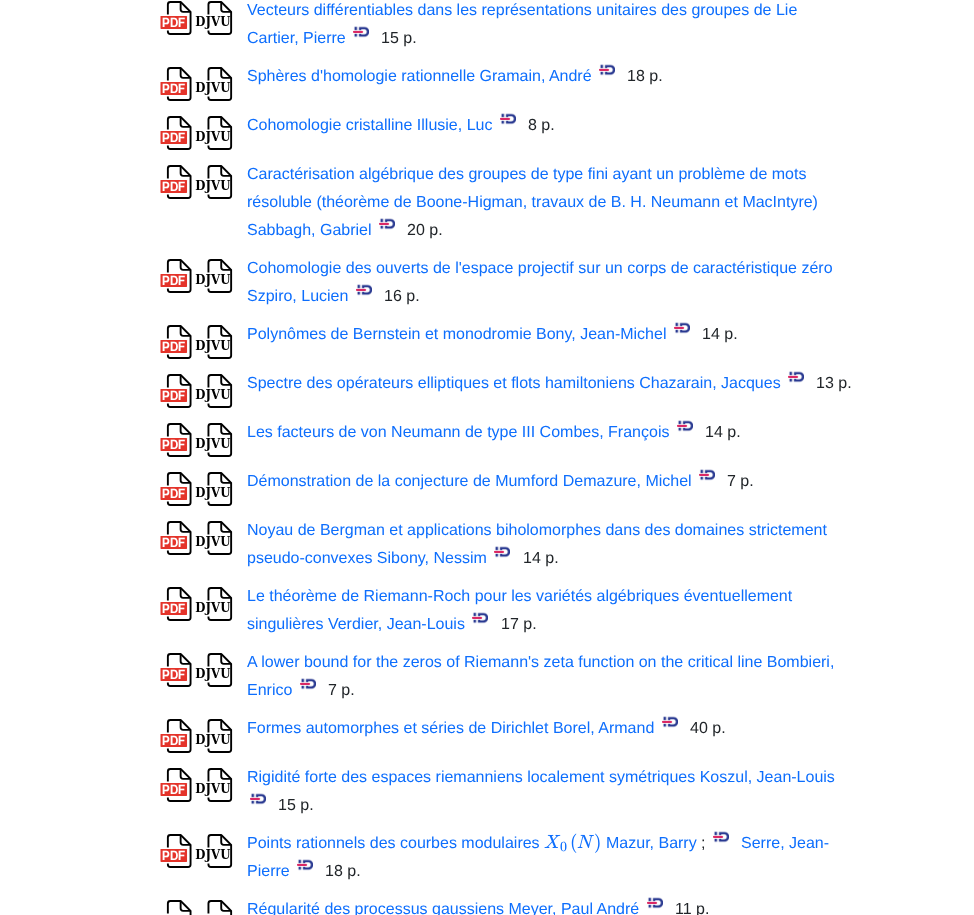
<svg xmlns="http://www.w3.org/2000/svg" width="974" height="915">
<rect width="100%" height="100%" fill="#fff"/>
<image x="160" y="1" width="32" height="34" href="media/1.png"/>
<image x="195" y="1" width="38" height="34" href="media/2.png"/>
<text x="247" y="15" style="font-family:Liberation Sans;font-size:16px;fill:#0d6efd">Vecteurs différentiables dans les représentations unitaires des groupes de Lie</text>
<text x="247" y="43" style="font-family:Liberation Sans;font-size:16px;fill:#0d6efd">Cartier, Pierre</text>
<image x="353" y="26" width="16" height="12" href="media/3.png"/>
<text x="381" y="43" style="font-family:Liberation Sans;font-size:16px;fill:#212529">15 p.</text>
<image x="160" y="67" width="32" height="34" href="media/1.png"/>
<image x="195" y="67" width="38" height="34" href="media/2.png"/>
<text x="247" y="81" style="font-family:Liberation Sans;font-size:16px;fill:#0d6efd">Sphères d'homologie rationnelle Gramain, André</text>
<image x="599" y="64" width="16" height="12" href="media/3.png"/>
<text x="627" y="81" style="font-family:Liberation Sans;font-size:16px;fill:#212529">18 p.</text>
<image x="160" y="116" width="32" height="34" href="media/1.png"/>
<image x="195" y="116" width="38" height="34" href="media/4.png"/>
<text x="247" y="130" style="font-family:Liberation Sans;font-size:16px;fill:#0d6efd">Cohomologie cristalline Illusie, Luc</text>
<image x="500" y="113" width="16" height="12" href="media/3.png"/>
<text x="528" y="130" style="font-family:Liberation Sans;font-size:16px;fill:#212529">8 p.</text>
<image x="160" y="165" width="32" height="34" href="media/1.png"/>
<image x="195" y="165" width="38" height="34" href="media/2.png"/>
<text x="247" y="179" style="font-family:Liberation Sans;font-size:16px;fill:#0d6efd">Caractérisation algébrique des groupes de type fini ayant un problème de mots</text>
<text x="247" y="207" style="font-family:Liberation Sans;font-size:16px;fill:#0d6efd">résoluble (théorème de Boone-Higman, travaux de B. H. Neumann et MacIntyre)</text>
<text x="247" y="235" style="font-family:Liberation Sans;font-size:16px;fill:#0d6efd">Sabbagh, Gabriel</text>
<image x="379" y="218" width="16" height="12" href="media/3.png"/>
<text x="407" y="235" style="font-family:Liberation Sans;font-size:16px;fill:#212529">20 p.</text>
<image x="160" y="259" width="32" height="34" href="media/1.png"/>
<image x="195" y="259" width="38" height="34" href="media/2.png"/>
<text x="247" y="273" style="font-family:Liberation Sans;font-size:16px;fill:#0d6efd">Cohomologie des ouverts de l'espace projectif sur un corps de caractéristique zéro</text>
<text x="247" y="301" style="font-family:Liberation Sans;font-size:16px;fill:#0d6efd">Szpiro, Lucien</text>
<image x="356" y="284" width="16" height="12" href="media/3.png"/>
<text x="384" y="301" style="font-family:Liberation Sans;font-size:16px;fill:#212529">16 p.</text>
<image x="160" y="325" width="32" height="34" href="media/1.png"/>
<image x="195" y="325" width="38" height="34" href="media/2.png"/>
<text x="247" y="339" style="font-family:Liberation Sans;font-size:16px;fill:#0d6efd">Polynômes de Bernstein et monodromie Bony, Jean-Michel</text>
<image x="674" y="322" width="16" height="12" href="media/3.png"/>
<text x="702" y="339" style="font-family:Liberation Sans;font-size:16px;fill:#212529">14 p.</text>
<image x="160" y="374" width="32" height="34" href="media/5.png"/>
<image x="195" y="374" width="38" height="34" href="media/4.png"/>
<text x="247" y="388" style="font-family:Liberation Sans;font-size:16px;fill:#0d6efd">Spectre des opérateurs elliptiques et flots hamiltoniens Chazarain, Jacques</text>
<image x="788" y="371" width="16" height="12" href="media/3.png"/>
<text x="816" y="388" style="font-family:Liberation Sans;font-size:16px;fill:#212529">13 p.</text>
<image x="160" y="423" width="32" height="34" href="media/1.png"/>
<image x="195" y="423" width="38" height="34" href="media/2.png"/>
<text x="247" y="437" style="font-family:Liberation Sans;font-size:16px;fill:#0d6efd">Les facteurs de von Neumann de type III Combes, François</text>
<image x="677" y="420" width="16" height="12" href="media/3.png"/>
<text x="705" y="437" style="font-family:Liberation Sans;font-size:16px;fill:#212529">14 p.</text>
<image x="160" y="472" width="32" height="34" href="media/1.png"/>
<image x="195" y="472" width="38" height="34" href="media/2.png"/>
<text x="247" y="486" style="font-family:Liberation Sans;font-size:16px;fill:#0d6efd">Démonstration de la conjecture de Mumford Demazure, Michel</text>
<image x="699" y="469" width="16" height="12" href="media/3.png"/>
<text x="727" y="486" style="font-family:Liberation Sans;font-size:16px;fill:#212529">7 p.</text>
<image x="160" y="521" width="32" height="34" href="media/1.png"/>
<image x="195" y="521" width="38" height="34" href="media/2.png"/>
<text x="247" y="535" style="font-family:Liberation Sans;font-size:16px;fill:#0d6efd">Noyau de Bergman et applications biholomorphes dans des domaines strictement</text>
<text x="247" y="563" style="font-family:Liberation Sans;font-size:16px;fill:#0d6efd">pseudo-convexes Sibony, Nessim</text>
<image x="494" y="546" width="16" height="12" href="media/3.png"/>
<text x="523" y="563" style="font-family:Liberation Sans;font-size:16px;fill:#212529">14 p.</text>
<image x="160" y="587" width="32" height="34" href="media/1.png"/>
<image x="195" y="587" width="38" height="34" href="media/2.png"/>
<text x="247" y="601" style="font-family:Liberation Sans;font-size:16px;fill:#0d6efd">Le théorème de Riemann-Roch pour les variétés algébriques éventuellement</text>
<text x="247" y="629" style="font-family:Liberation Sans;font-size:16px;fill:#0d6efd">singulières Verdier, Jean-Louis</text>
<image x="472" y="612" width="16" height="12" href="media/3.png"/>
<text x="501" y="629" style="font-family:Liberation Sans;font-size:16px;fill:#212529">17 p.</text>
<image x="160" y="653" width="32" height="34" href="media/1.png"/>
<image x="195" y="653" width="38" height="34" href="media/2.png"/>
<text x="247" y="667" style="font-family:Liberation Sans;font-size:16px;fill:#0d6efd">A lower bound for the zeros of Riemann's zeta function on the critical line Bombieri,</text>
<text x="247" y="695" style="font-family:Liberation Sans;font-size:16px;fill:#0d6efd">Enrico</text>
<image x="300" y="678" width="16" height="12" href="media/3.png"/>
<text x="328" y="695" style="font-family:Liberation Sans;font-size:16px;fill:#212529">7 p.</text>
<image x="160" y="719" width="32" height="34" href="media/1.png"/>
<image x="195" y="719" width="38" height="34" href="media/2.png"/>
<text x="247" y="733" style="font-family:Liberation Sans;font-size:16px;fill:#0d6efd">Formes automorphes et séries de Dirichlet Borel, Armand</text>
<image x="662" y="716" width="16" height="12" href="media/3.png"/>
<text x="690" y="733" style="font-family:Liberation Sans;font-size:16px;fill:#212529">40 p.</text>
<image x="160" y="768" width="32" height="34" href="media/1.png"/>
<image x="195" y="768" width="38" height="34" href="media/2.png"/>
<text x="247" y="782" style="font-family:Liberation Sans;font-size:16px;fill:#0d6efd">Rigidité forte des espaces riemanniens localement symétriques Koszul, Jean-Louis</text>
<image x="250" y="793" width="16" height="12" href="media/3.png"/>
<text x="278" y="810" style="font-family:Liberation Sans;font-size:16px;fill:#212529">15 p.</text>
<image x="160" y="834" width="32" height="34" href="media/1.png"/>
<image x="195" y="834" width="38" height="34" href="media/2.png"/>
<text x="247" y="848" style="font-family:Liberation Sans;font-size:16px;fill:#0d6efd">Points rationnels des courbes modulaires</text>
<image x="544" y="834" width="17" height="14" href="media/6.png"/>
<text x="560" y="851" style="font-family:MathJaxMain;font-size:14px;fill:#0d6efd">0</text>
<text x="570" y="848" style="font-family:MathJaxMain;font-size:19px;fill:#0d6efd">(</text>
<image x="577" y="834" width="17" height="14" href="media/7.png"/>
<text x="594" y="848" style="font-family:MathJaxMain;font-size:19px;fill:#0d6efd">)</text>
<text x="606" y="848" style="font-family:Liberation Sans;font-size:16px;fill:#0d6efd">Mazur, Barry</text>
<text x="701" y="848" style="font-family:Liberation Sans;font-size:16px;fill:#212529">;</text>
<image x="713" y="831" width="16" height="12" href="media/3.png"/>
<text x="741" y="848" style="font-family:Liberation Sans;font-size:16px;fill:#0d6efd">Serre, Jean-</text>
<text x="247" y="876" style="font-family:Liberation Sans;font-size:16px;fill:#0d6efd">Pierre</text>
<image x="297" y="859" width="16" height="12" href="media/3.png"/>
<text x="325" y="876" style="font-family:Liberation Sans;font-size:16px;fill:#212529">18 p.</text>
<image x="166" y="900" width="26" height="15" href="media/8.png"/>
<image x="207" y="900" width="26" height="15" href="media/9.png"/>
<text x="247" y="914" style="font-family:Liberation Sans;font-size:16px;fill:#0d6efd">Régularité des processus gaussiens Meyer, Paul André</text>
<image x="647" y="897" width="16" height="12" href="media/3.png"/>
<text x="675" y="914" style="font-family:Liberation Sans;font-size:16px;fill:#212529">11 p.</text>
</svg>
